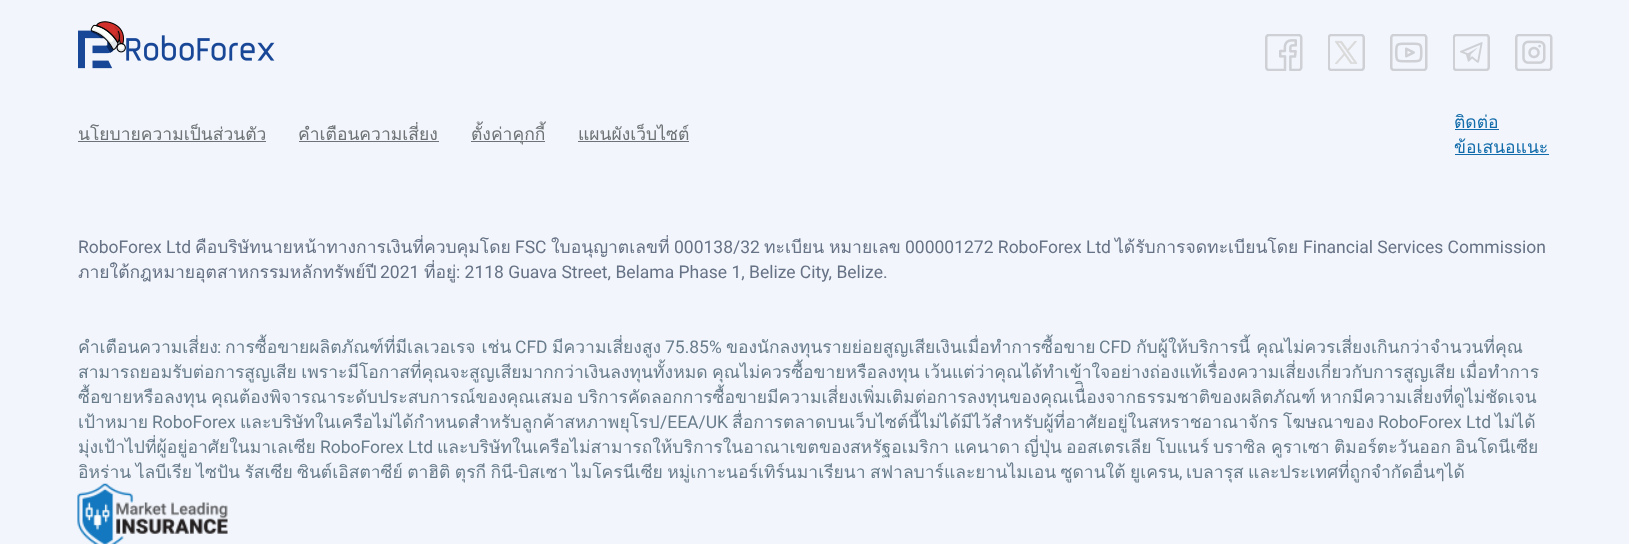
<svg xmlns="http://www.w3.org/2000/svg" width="1629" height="544">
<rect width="100%" height="100%" fill="#f2f5fb"/>
<image x="78" y="21" width="197" height="48" href="media/1.png"/>
<image x="1265" y="34" width="38" height="37" href="media/2.png"/>
<image x="1328" y="34" width="37" height="37" href="media/3.png"/>
<image x="1390" y="34" width="38" height="37" href="media/4.png"/>
<image x="1453" y="34" width="37" height="37" href="media/5.png"/>
<image x="1515" y="34" width="38" height="37" href="media/6.png"/>
<text x="78" y="140" style="font-family:Loma;font-size:17.5px;fill:#6d7376">นโยบายความเป็นส่วนตัว</text>
<rect x="78" y="141" width="188" height="1" fill="#6d7376"/>
<text x="298" y="140" style="font-family:Loma;font-size:17.5px;fill:#6d7376">คำเตือนความเสี่ยง</text>
<rect x="299" y="141" width="140" height="1" fill="#6d7376"/>
<rect x="471" y="141" width="74" height="1" fill="#6d7376"/>
<text x="471" y="140" style="font-family:Loma;font-size:17.5px;fill:#6d7376">ตั้งค่าคุกกี้</text>
<text x="578" y="140" style="font-family:Loma;font-size:17.5px;fill:#6d7376">แผนผังเว็บไซต์</text>
<rect x="578" y="141" width="111" height="1" fill="#6d7376"/>
<text x="1454" y="128" style="font-family:Loma;font-size:17.5px;fill:#126cab">ติดต่อ</text>
<rect x="1455" y="129" width="44" height="1" fill="#126cab"/>
<text x="1454" y="153" style="font-family:Loma;font-size:17.5px;fill:#126cab">ข้อเสนอแนะ</text>
<rect x="1455" y="154" width="94" height="1" fill="#126cab"/>
<text x="78" y="253" style="font-family:Roboto;font-size:17.5px;fill:#667285">RoboForex Ltd</text>
<text x="195" y="253" style="font-family:Loma;font-size:17.5px;fill:#667285">คือบริษัทนายหน้าทางการเงินที่ควบคุมโดย</text>
<text x="515" y="253" style="font-family:Roboto;font-size:17.5px;fill:#667285">FSC</text>
<text x="551" y="253" style="font-family:Loma;font-size:17.5px;fill:#667285">ใบอนุญาตเลขที่</text>
<text x="674" y="253" style="font-family:Roboto;font-size:17.5px;fill:#667285">000138/32</text>
<text x="764" y="253" style="font-family:Loma;font-size:17.5px;fill:#667285">ทะเบียน</text>
<text x="829" y="253" style="font-family:Loma;font-size:17.5px;fill:#667285">หมายเลข</text>
<text x="905" y="253" style="font-family:Roboto;font-size:17.5px;fill:#667285">000001272 RoboForex Ltd</text>
<text x="1115" y="253" style="font-family:Loma;font-size:17.5px;fill:#667285">ได้รับการจดทะเบียนโดย</text>
<text x="1303" y="253" style="font-family:Roboto;font-size:17.5px;fill:#667285">Financial Services Commission</text>
<text x="78" y="278" style="font-family:Loma;font-size:17.5px;fill:#667285">ภายใต้กฎหมายอุตสาหกรรมหลักทรัพย์ปี</text>
<text x="380" y="278" style="font-family:Roboto;font-size:17.5px;fill:#667285">2021</text>
<text x="424" y="278" style="font-family:Loma;font-size:17.5px;fill:#667285">ที่อยู่</text>
<text x="456" y="278" style="font-family:Roboto;font-size:17.5px;fill:#667285">: 2118 Guava Street, Belama Phase 1, Belize City, Belize.</text>
<text x="78" y="353" style="font-family:Loma;font-size:17.5px;fill:#697d8c">คำเตือนความเสี่ยง</text>
<text x="217" y="353" style="font-family:Roboto;font-size:17.5px;fill:#697d8c">:</text>
<text x="225" y="353" style="font-family:Loma;font-size:17.5px;fill:#697d8c">การซื้อขายผลิตภัณฑ์ที่มีเลเวอเรจ เช่น</text>
<text x="515" y="353" style="font-family:Roboto;font-size:17.5px;fill:#697d8c">CFD</text>
<text x="552" y="353" style="font-family:Loma;font-size:17.5px;fill:#697d8c">มีความเสี่ยงสูง</text>
<text x="665" y="353" style="font-family:Roboto;font-size:17.5px;fill:#697d8c">75.85%</text>
<text x="726" y="353" style="font-family:Loma;font-size:17.5px;fill:#697d8c">ของนักลงทุนรายย่อยสูญเสียเงินเมื่อทำการซื้อขาย</text>
<text x="1099" y="353" style="font-family:Roboto;font-size:17.5px;fill:#697d8c">CFD</text>
<text x="1136" y="353" style="font-family:Loma;font-size:17.5px;fill:#697d8c">กับผู้ให้บริการนี้ คุณไม่ควรเสี่ยงเกินกว่าจำนวนที่คุณ</text>
<text x="78" y="378" word-spacing="-1.5" style="font-family:Loma;font-size:17.5px;fill:#697d8c">สามารถยอมรับต่อการสูญเสีย เพราะมีโอกาสที่คุณจะสูญเสียมากกว่าเงินลงทุนทั้งหมด คุณไม่ควรซื้อขายหรือลงทุน เว้นแต่ว่าคุณได้ทำเข้าใจอย่างถ่องแท้เรื่องความเสี่ยงเกี่ยวกับการสูญเสีย เมื่อทำการ</text>
<text x="78" y="403" word-spacing="-1.5" style="font-family:Loma;font-size:17.5px;fill:#697d8c">ซื้อขายหรือลงทุน คุณต้องพิจารณาระดับประสบการณ์ของคุณเสมอ บริการคัดลอกการซื้อขายมีความเสี่ยงเพิ่มเติมต่อการลงทุนของคุณเนื่ิองจากธรรมชาติของผลิตภัณฑ์ หากมีความเสี่ยงที่ดูไม่ชัดเจน</text>
<text x="78" y="428" style="font-family:Loma;font-size:17.5px;fill:#697d8c">เป้าหมาย</text>
<text x="152" y="428" style="font-family:Roboto;font-size:17.5px;fill:#697d8c">RoboForex</text>
<text x="240" y="428" style="font-family:Loma;font-size:17.5px;fill:#697d8c">และบริษัทในเครือไม่ได้กำหนดสำหรับลูกค้าสหภาพยุโรป</text>
<text x="660" y="428" style="font-family:Roboto;font-size:17.5px;fill:#697d8c">/EEA/UK</text>
<text x="732" y="428" style="font-family:Loma;font-size:17.5px;fill:#697d8c">สื่อการตลาดบนเว็บไซต์นี้ไม่ได้มีไว้สำหรับผู้ที่อาศัยอยู่ในสหราชอาณาจักร</text>
<text x="1283" y="428" style="font-family:Loma;font-size:17.5px;fill:#697d8c">โฆษณาของ</text>
<text x="1378" y="428" style="font-family:Roboto;font-size:17.5px;fill:#697d8c">RoboForex Ltd</text>
<text x="1495" y="428" style="font-family:Loma;font-size:17.5px;fill:#697d8c">ไม่ได้</text>
<text x="78" y="453" style="font-family:Loma;font-size:17.5px;fill:#697d8c">มุ่งเป้าไปที่ผู้อยู่อาศัยในมาเลเซีย</text>
<text x="320" y="453" style="font-family:Roboto;font-size:17.5px;fill:#697d8c">RoboForex Ltd</text>
<text x="437" y="453" style="font-family:Loma;font-size:17.5px;fill:#697d8c">และบริษัทในเครือไม่สามารถให้บริการในอาณาเขตของสหรัฐอเมริกา</text>
<text x="954" y="453" style="font-family:Loma;font-size:17.5px;fill:#697d8c">แคนาดา</text>
<text x="1024" y="453" style="font-family:Loma;font-size:17.5px;fill:#697d8c">ญี่ปุ่น</text>
<text x="1066" y="453" style="font-family:Loma;font-size:17.5px;fill:#697d8c">ออสเตรเลีย</text>
<text x="1156" y="453" style="font-family:Loma;font-size:17.5px;fill:#697d8c">โบแนร์</text>
<text x="1213" y="453" style="font-family:Loma;font-size:17.5px;fill:#697d8c">บราซิล</text>
<text x="1271" y="453" style="font-family:Loma;font-size:17.5px;fill:#697d8c">คูราเซา</text>
<text x="1334" y="453" style="font-family:Loma;font-size:17.5px;fill:#697d8c">ติมอร์ตะวันออก</text>
<text x="1455" y="453" style="font-family:Loma;font-size:17.5px;fill:#697d8c">อินโดนีเซีย</text>
<text x="78" y="478" word-spacing="-1.5" style="font-family:Loma;font-size:17.5px;fill:#697d8c">อิหร่าน ไลบีเรีย ไซปัน รัสเซีย ซินต์เอิสตาซีย์ ตาฮิติ ตุรกี กินี</text>
<text x="513" y="478" style="font-family:Roboto;font-size:17.5px;fill:#697d8c">-</text>
<text x="518" y="478" word-spacing="-1.5" style="font-family:Loma;font-size:17.5px;fill:#697d8c">บิสเซา ไมโครนีเซีย หมู่เกาะนอร์เทิร์นมาเรียนา สฟาลบาร์และยานไมเอน ซูดานใต้ ยูเครน</text>
<text x="1186" y="478" word-spacing="-1.5" style="font-family:Loma;font-size:17.5px;fill:#697d8c">เบลารุส และประเทศที่ถูกจำกัดอื่นๆได้</text>
<text x="1179" y="478" style="font-family:Roboto;font-size:17.5px;fill:#697d8c">,</text>
<image x="77" y="483" width="151" height="61" href="media/7.png"/>
</svg>
